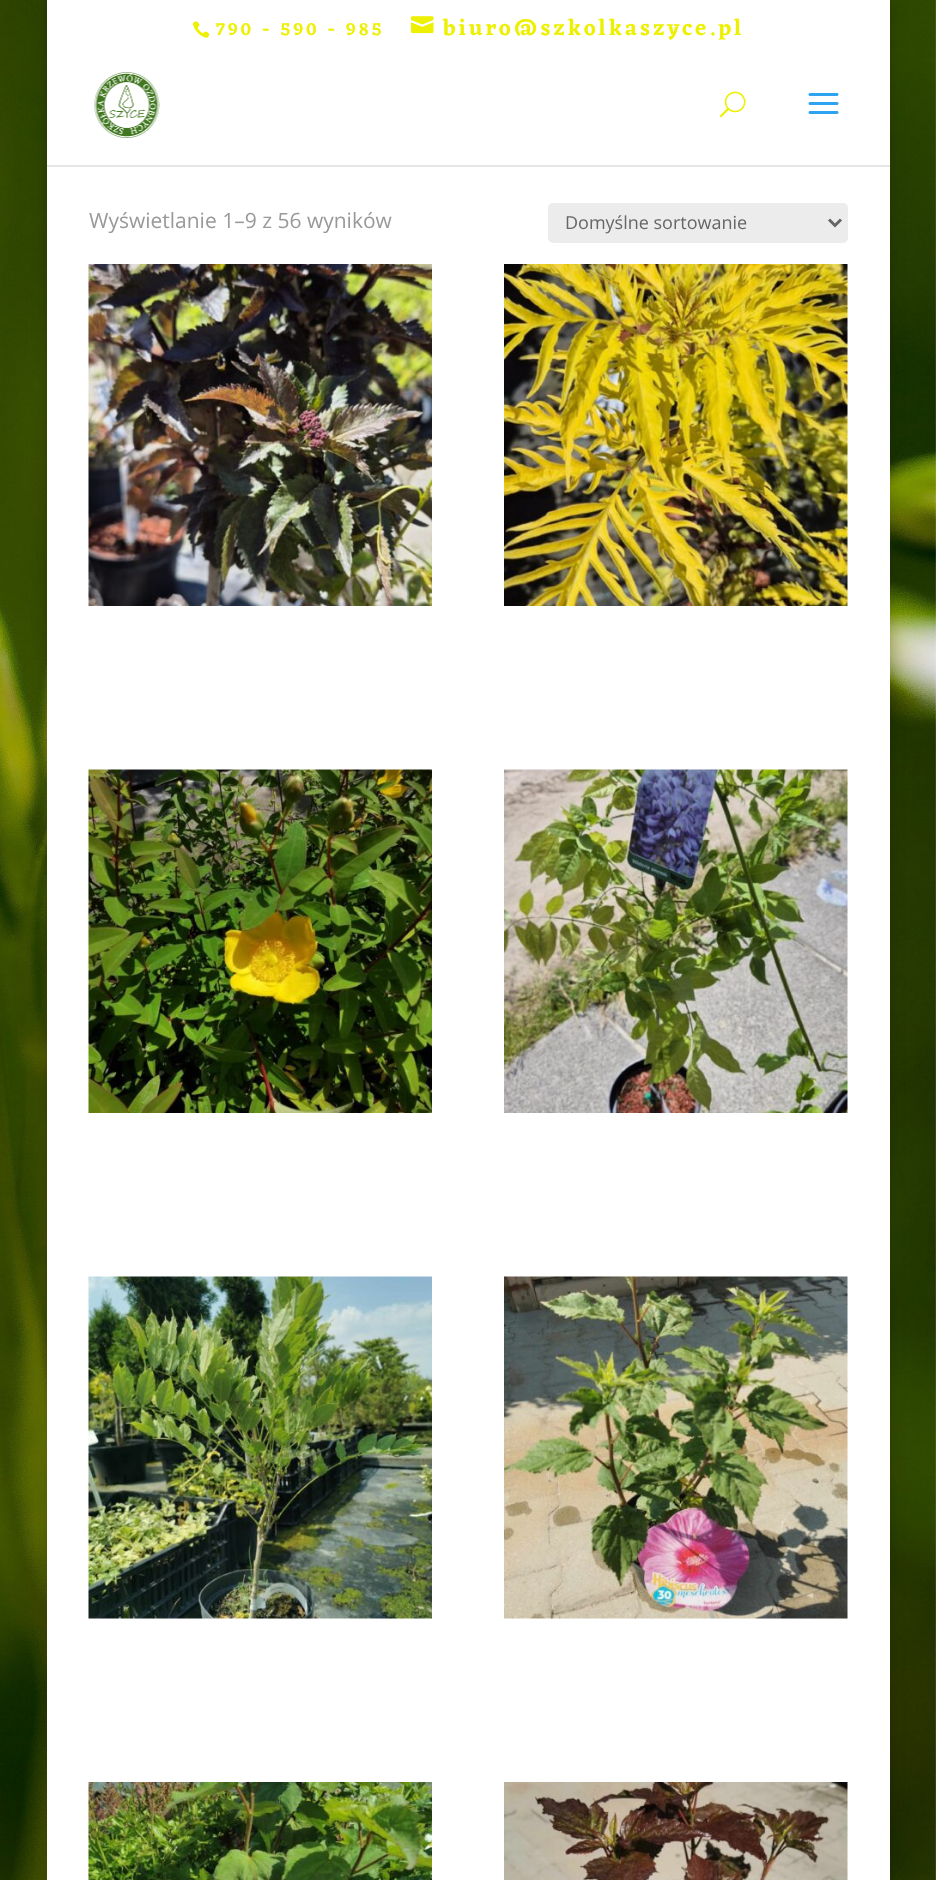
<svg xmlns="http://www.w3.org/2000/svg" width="936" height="1880">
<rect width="100%" height="100%" fill="#fff"/>
<image x="0" y="0" width="936" height="1880" href="media/1.png"/>
<rect x="47" width="843" height="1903" fill="#00000033" filter="blur(7.5px)"/>
<rect x="47" width="843" height="1880" fill="#fff"/>
<image x="192" y="21" width="18" height="17" href="media/2.png"/>
<text x="216" y="35" style="font-family:Eczar;font-size:18px;font-weight:600;letter-spacing:3px;fill:#edf000">790 - 590 - 985</text>
<image x="411" y="16" width="23" height="18" href="media/3.png"/>
<text x="443" y="35" style="font-family:Eczar;font-size:22.5px;font-weight:600;letter-spacing:3px;fill:#edf000">biuro@szkolkaszyce.pl</text>
<path d="M47 165v2h843v-120v118z" fill="#0000001a"/>
<image x="94" y="72" width="66" height="66" href="media/4.png"/>
<image x="719" y="91" width="27" height="27" href="media/5.png"/>
<image x="808" y="93" width="31" height="21" href="media/6.png"/>
<text x="89" y="228" style="font-family:Open Sans;font-size:21px;fill:#999">Wyświetlanie 1–9 z 56 wyników</text>
<rect x="548" y="203" width="300" height="40" rx="5" fill="#ececec"/>
<path d="M829 219.5l6 6l6-6" fill="none" stroke="#666" stroke-width="3"/>
<text x="565" y="229" style="font-family:Open Sans;font-size:18px;fill:#666">Domyślne sortowanie</text>
<image x="88" y="264" width="344" height="342" href="media/7.png"/>
<image x="504" y="264" width="344" height="342" href="media/8.png"/>
<image x="88" y="769" width="344" height="344" href="media/9.png"/>
<image x="504" y="769" width="344" height="344" href="media/10.png"/>
<image x="88" y="1276" width="344" height="343" href="media/11.png"/>
<image x="504" y="1276" width="344" height="343" href="media/12.png"/>
<image x="88" y="1782" width="344" height="98" href="media/13.png"/>
<image x="504" y="1782" width="344" height="98" href="media/14.png"/>
</svg>
